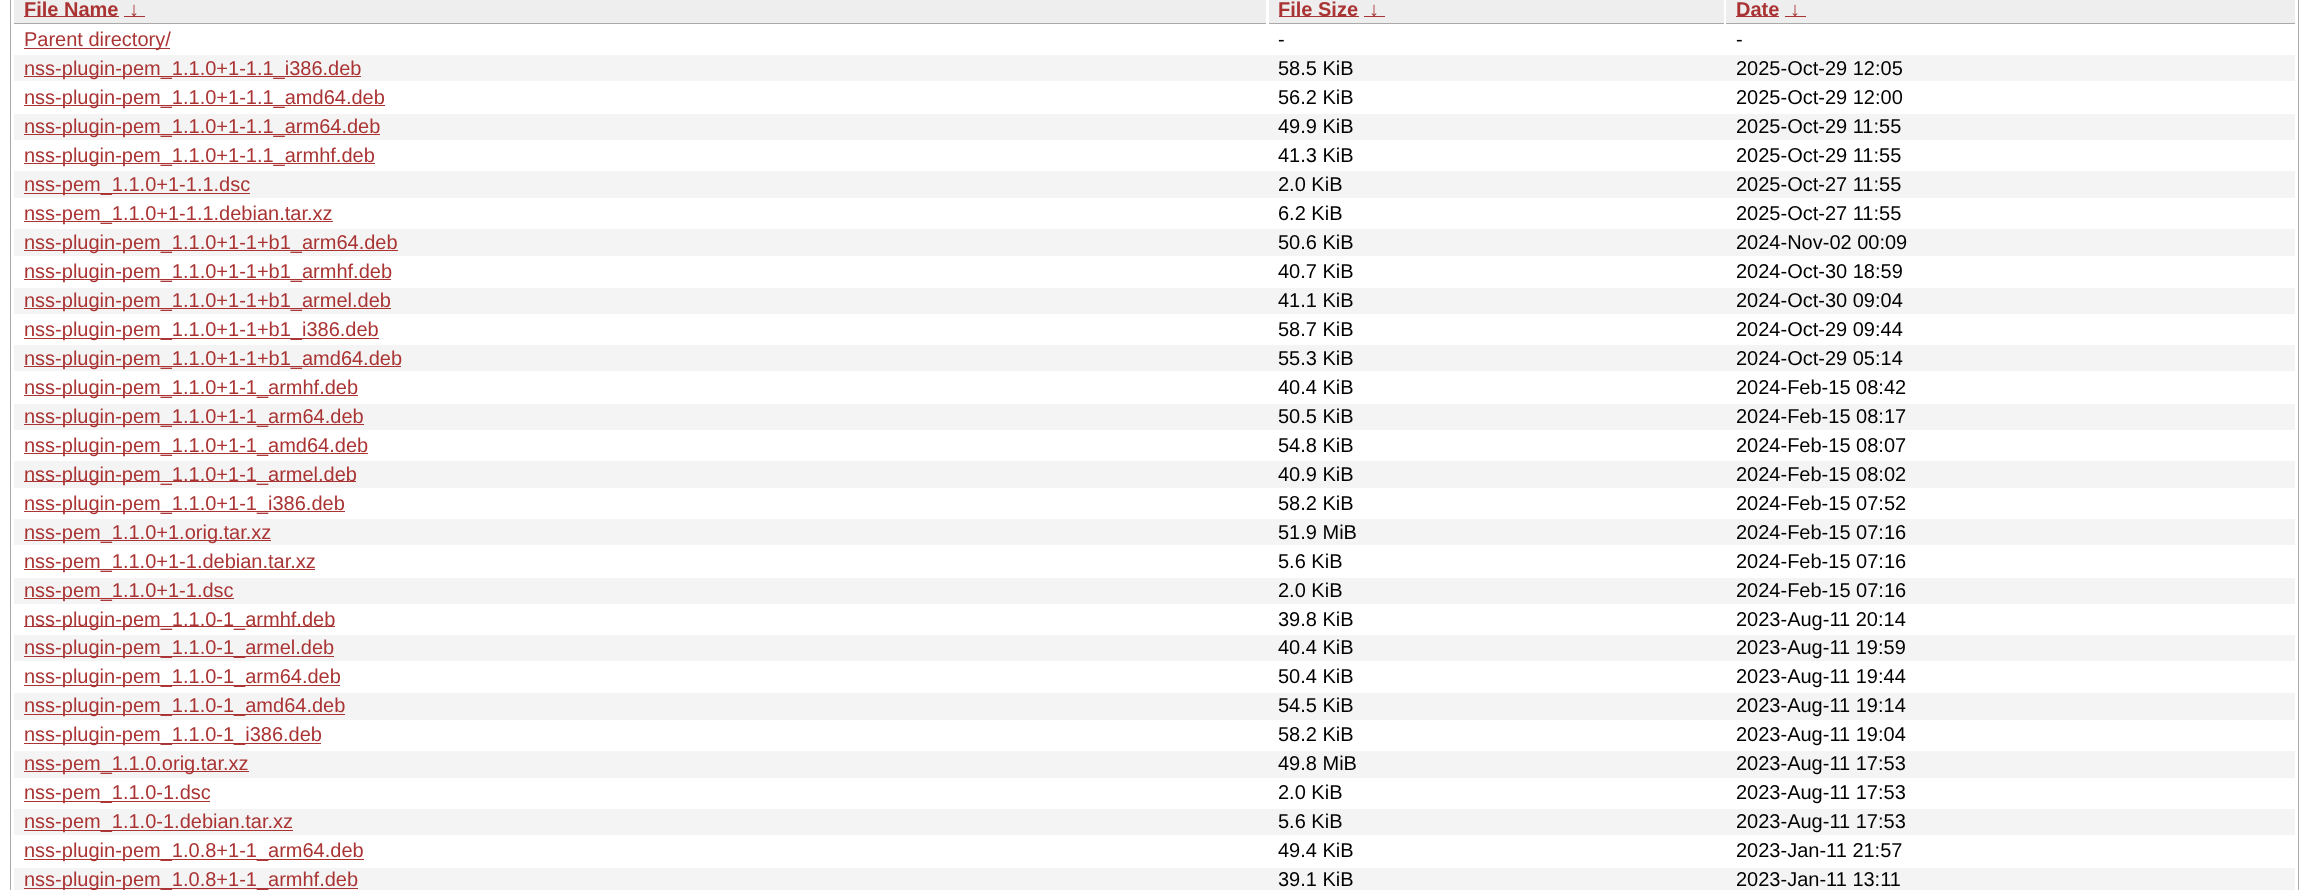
<svg xmlns="http://www.w3.org/2000/svg" width="2308" height="890">
<rect width="100%" height="100%" fill="#fff"/>
<rect x="10.5" y="-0.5" width="2288" height="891" fill="none" stroke="#aaa"/>
<rect x="14" width="1252" height="23" fill="#eee"/>
<rect x="14" y="23" width="1252" height="1" fill="#aaa"/>
<rect x="24" y="16" width="95" height="1" fill="#a33"/>
<text x="24" y="16" style="font-family:Liberation Sans;font-size:20px;font-weight:bold;fill:#a33">File Name</text>
<rect x="124" y="16" width="21" height="1" fill="#a33"/>
<text x="129" y="16" style="font-family:Liberation Sans;font-size:20px;font-weight:bold;fill:#a33">↓</text>
<rect x="1269" width="455" height="23" fill="#eee"/>
<rect x="1269" y="23" width="455" height="1" fill="#aaa"/>
<rect x="1279" y="16" width="80" height="1" fill="#a33"/>
<text x="1278" y="16" style="font-family:Liberation Sans;font-size:20px;font-weight:bold;fill:#a33">File Size</text>
<rect x="1364" y="16" width="21" height="1" fill="#a33"/>
<text x="1369" y="16" style="font-family:Liberation Sans;font-size:20px;font-weight:bold;fill:#a33">↓</text>
<rect x="1726" width="569" height="23" fill="#eee"/>
<rect x="1726" y="23" width="569" height="1" fill="#aaa"/>
<rect x="1736" y="16" width="43" height="1" fill="#a33"/>
<text x="1736" y="16" style="font-family:Liberation Sans;font-size:20px;font-weight:bold;fill:#a33">Date</text>
<rect x="1785" y="16" width="21" height="1" fill="#a33"/>
<text x="1790" y="16" style="font-family:Liberation Sans;font-size:20px;font-weight:bold;fill:#a33">↓</text>
<rect x="24" y="48" width="146" height="1" fill="#a33"/>
<text x="24" y="46" style="font-family:Liberation Sans;font-size:20px;fill:#a33">Parent directory/</text>
<text x="1278" y="46" style="font-family:Liberation Sans;font-size:20px;fill:#000">-</text>
<text x="1736" y="46" style="font-family:Liberation Sans;font-size:20px;fill:#000">-</text>
<rect x="14" y="55" width="2281" height="26" fill="#f4f4f4"/>
<rect x="24" y="76" width="337" height="1" fill="#a33"/>
<text x="24" y="75" style="font-family:Liberation Sans;font-size:20px;fill:#a33">nss-plugin-pem_1.1.0+1-1.1_i386.deb</text>
<text x="1278" y="75" style="font-family:Liberation Sans;font-size:20px;fill:#000">58.5 KiB</text>
<text x="1736" y="75" style="font-family:Liberation Sans;font-size:20px;fill:#000">2025-Oct-29 12:05</text>
<rect x="24" y="105" width="361" height="1" fill="#a33"/>
<text x="24" y="104" style="font-family:Liberation Sans;font-size:20px;fill:#a33">nss-plugin-pem_1.1.0+1-1.1_amd64.deb</text>
<text x="1278" y="104" style="font-family:Liberation Sans;font-size:20px;fill:#000">56.2 KiB</text>
<text x="1736" y="104" style="font-family:Liberation Sans;font-size:20px;fill:#000">2025-Oct-29 12:00</text>
<rect x="14" y="114" width="2281" height="26" fill="#f4f4f4"/>
<rect x="24" y="134" width="356" height="1" fill="#a33"/>
<text x="24" y="133" style="font-family:Liberation Sans;font-size:20px;fill:#a33">nss-plugin-pem_1.1.0+1-1.1_arm64.deb</text>
<text x="1278" y="133" style="font-family:Liberation Sans;font-size:20px;fill:#000">49.9 KiB</text>
<text x="1736" y="133" style="font-family:Liberation Sans;font-size:20px;fill:#000">2025-Oct-29 11:55</text>
<rect x="24" y="163" width="351" height="1" fill="#a33"/>
<text x="24" y="162" style="font-family:Liberation Sans;font-size:20px;fill:#a33">nss-plugin-pem_1.1.0+1-1.1_armhf.deb</text>
<text x="1278" y="162" style="font-family:Liberation Sans;font-size:20px;fill:#000">41.3 KiB</text>
<text x="1736" y="162" style="font-family:Liberation Sans;font-size:20px;fill:#000">2025-Oct-29 11:55</text>
<rect x="14" y="171" width="2281" height="27" fill="#f4f4f4"/>
<rect x="24" y="193" width="226" height="1" fill="#a33"/>
<text x="24" y="191" style="font-family:Liberation Sans;font-size:20px;fill:#a33">nss-pem_1.1.0+1-1.1.dsc</text>
<text x="1278" y="191" style="font-family:Liberation Sans;font-size:20px;fill:#000">2.0 KiB</text>
<text x="1736" y="191" style="font-family:Liberation Sans;font-size:20px;fill:#000">2025-Oct-27 11:55</text>
<rect x="24" y="221" width="309" height="1" fill="#a33"/>
<text x="24" y="220" style="font-family:Liberation Sans;font-size:20px;fill:#a33">nss-pem_1.1.0+1-1.1.debian.tar.xz</text>
<text x="1278" y="220" style="font-family:Liberation Sans;font-size:20px;fill:#000">6.2 KiB</text>
<text x="1736" y="220" style="font-family:Liberation Sans;font-size:20px;fill:#000">2025-Oct-27 11:55</text>
<rect x="14" y="229" width="2281" height="27" fill="#f4f4f4"/>
<rect x="24" y="250" width="374" height="1" fill="#a33"/>
<text x="24" y="249" style="font-family:Liberation Sans;font-size:20px;fill:#a33">nss-plugin-pem_1.1.0+1-1+b1_arm64.deb</text>
<text x="1278" y="249" style="font-family:Liberation Sans;font-size:20px;fill:#000">50.6 KiB</text>
<text x="1736" y="249" style="font-family:Liberation Sans;font-size:20px;fill:#000">2024-Nov-02 00:09</text>
<rect x="24" y="279" width="367" height="1" fill="#a33"/>
<text x="24" y="278" style="font-family:Liberation Sans;font-size:20px;fill:#a33">nss-plugin-pem_1.1.0+1-1+b1_armhf.deb</text>
<text x="1278" y="278" style="font-family:Liberation Sans;font-size:20px;fill:#000">40.7 KiB</text>
<text x="1736" y="278" style="font-family:Liberation Sans;font-size:20px;fill:#000">2024-Oct-30 18:59</text>
<rect x="14" y="288" width="2281" height="26" fill="#f4f4f4"/>
<rect x="24" y="308" width="367" height="1" fill="#a33"/>
<text x="24" y="307" style="font-family:Liberation Sans;font-size:20px;fill:#a33">nss-plugin-pem_1.1.0+1-1+b1_armel.deb</text>
<text x="1278" y="307" style="font-family:Liberation Sans;font-size:20px;fill:#000">41.1 KiB</text>
<text x="1736" y="307" style="font-family:Liberation Sans;font-size:20px;fill:#000">2024-Oct-30 09:04</text>
<rect x="24" y="338" width="355" height="1" fill="#a33"/>
<text x="24" y="336" style="font-family:Liberation Sans;font-size:20px;fill:#a33">nss-plugin-pem_1.1.0+1-1+b1_i386.deb</text>
<text x="1278" y="336" style="font-family:Liberation Sans;font-size:20px;fill:#000">58.7 KiB</text>
<text x="1736" y="336" style="font-family:Liberation Sans;font-size:20px;fill:#000">2024-Oct-29 09:44</text>
<rect x="14" y="345" width="2281" height="26" fill="#f4f4f4"/>
<rect x="24" y="366" width="377" height="1" fill="#a33"/>
<text x="24" y="365" style="font-family:Liberation Sans;font-size:20px;fill:#a33">nss-plugin-pem_1.1.0+1-1+b1_amd64.deb</text>
<text x="1278" y="365" style="font-family:Liberation Sans;font-size:20px;fill:#000">55.3 KiB</text>
<text x="1736" y="365" style="font-family:Liberation Sans;font-size:20px;fill:#000">2024-Oct-29 05:14</text>
<rect x="24" y="395" width="334" height="1" fill="#a33"/>
<text x="24" y="394" style="font-family:Liberation Sans;font-size:20px;fill:#a33">nss-plugin-pem_1.1.0+1-1_armhf.deb</text>
<text x="1278" y="394" style="font-family:Liberation Sans;font-size:20px;fill:#000">40.4 KiB</text>
<text x="1736" y="394" style="font-family:Liberation Sans;font-size:20px;fill:#000">2024-Feb-15 08:42</text>
<rect x="14" y="404" width="2281" height="26" fill="#f4f4f4"/>
<rect x="24" y="424" width="340" height="1" fill="#a33"/>
<text x="24" y="423" style="font-family:Liberation Sans;font-size:20px;fill:#a33">nss-plugin-pem_1.1.0+1-1_arm64.deb</text>
<text x="1278" y="423" style="font-family:Liberation Sans;font-size:20px;fill:#000">50.5 KiB</text>
<text x="1736" y="423" style="font-family:Liberation Sans;font-size:20px;fill:#000">2024-Feb-15 08:17</text>
<rect x="24" y="453" width="344" height="1" fill="#a33"/>
<text x="24" y="452" style="font-family:Liberation Sans;font-size:20px;fill:#a33">nss-plugin-pem_1.1.0+1-1_amd64.deb</text>
<text x="1278" y="452" style="font-family:Liberation Sans;font-size:20px;fill:#000">54.8 KiB</text>
<text x="1736" y="452" style="font-family:Liberation Sans;font-size:20px;fill:#000">2024-Feb-15 08:07</text>
<rect x="14" y="461" width="2281" height="27" fill="#f4f4f4"/>
<rect x="24" y="481" width="332" height="1" fill="#a33"/>
<text x="24" y="481" style="font-family:Liberation Sans;font-size:20px;fill:#a33">nss-plugin-pem_1.1.0+1-1_armel.deb</text>
<text x="1278" y="481" style="font-family:Liberation Sans;font-size:20px;fill:#000">40.9 KiB</text>
<text x="1736" y="481" style="font-family:Liberation Sans;font-size:20px;fill:#000">2024-Feb-15 08:02</text>
<rect x="24" y="511" width="321" height="1" fill="#a33"/>
<text x="24" y="510" style="font-family:Liberation Sans;font-size:20px;fill:#a33">nss-plugin-pem_1.1.0+1-1_i386.deb</text>
<text x="1278" y="510" style="font-family:Liberation Sans;font-size:20px;fill:#000">58.2 KiB</text>
<text x="1736" y="510" style="font-family:Liberation Sans;font-size:20px;fill:#000">2024-Feb-15 07:52</text>
<rect x="14" y="519" width="2281" height="26" fill="#f4f4f4"/>
<rect x="24" y="540" width="247" height="1" fill="#a33"/>
<text x="24" y="539" style="font-family:Liberation Sans;font-size:20px;fill:#a33">nss-pem_1.1.0+1.orig.tar.xz</text>
<text x="1278" y="539" style="font-family:Liberation Sans;font-size:20px;fill:#000">51.9 MiB</text>
<text x="1736" y="539" style="font-family:Liberation Sans;font-size:20px;fill:#000">2024-Feb-15 07:16</text>
<rect x="24" y="569" width="291" height="1" fill="#a33"/>
<text x="24" y="568" style="font-family:Liberation Sans;font-size:20px;fill:#a33">nss-pem_1.1.0+1-1.debian.tar.xz</text>
<text x="1278" y="568" style="font-family:Liberation Sans;font-size:20px;fill:#000">5.6 KiB</text>
<text x="1736" y="568" style="font-family:Liberation Sans;font-size:20px;fill:#000">2024-Feb-15 07:16</text>
<rect x="14" y="578" width="2281" height="26" fill="#f4f4f4"/>
<rect x="24" y="598" width="210" height="1" fill="#a33"/>
<text x="24" y="597" style="font-family:Liberation Sans;font-size:20px;fill:#a33">nss-pem_1.1.0+1-1.dsc</text>
<text x="1278" y="597" style="font-family:Liberation Sans;font-size:20px;fill:#000">2.0 KiB</text>
<text x="1736" y="597" style="font-family:Liberation Sans;font-size:20px;fill:#000">2024-Feb-15 07:16</text>
<rect x="24" y="626" width="311" height="1" fill="#a33"/>
<text x="24" y="626" style="font-family:Liberation Sans;font-size:20px;fill:#a33">nss-plugin-pem_1.1.0-1_armhf.deb</text>
<text x="1278" y="626" style="font-family:Liberation Sans;font-size:20px;fill:#000">39.8 KiB</text>
<text x="1736" y="626" style="font-family:Liberation Sans;font-size:20px;fill:#000">2023-Aug-11 20:14</text>
<rect x="14" y="635" width="2281" height="26" fill="#f4f4f4"/>
<rect x="24" y="656" width="310" height="1" fill="#a33"/>
<text x="24" y="654" style="font-family:Liberation Sans;font-size:20px;fill:#a33">nss-plugin-pem_1.1.0-1_armel.deb</text>
<text x="1278" y="654" style="font-family:Liberation Sans;font-size:20px;fill:#000">40.4 KiB</text>
<text x="1736" y="654" style="font-family:Liberation Sans;font-size:20px;fill:#000">2023-Aug-11 19:59</text>
<rect x="24" y="685" width="316" height="1" fill="#a33"/>
<text x="24" y="683" style="font-family:Liberation Sans;font-size:20px;fill:#a33">nss-plugin-pem_1.1.0-1_arm64.deb</text>
<text x="1278" y="683" style="font-family:Liberation Sans;font-size:20px;fill:#000">50.4 KiB</text>
<text x="1736" y="683" style="font-family:Liberation Sans;font-size:20px;fill:#000">2023-Aug-11 19:44</text>
<rect x="14" y="693" width="2281" height="27" fill="#f4f4f4"/>
<rect x="24" y="714" width="321" height="1" fill="#a33"/>
<text x="24" y="712" style="font-family:Liberation Sans;font-size:20px;fill:#a33">nss-plugin-pem_1.1.0-1_amd64.deb</text>
<text x="1278" y="712" style="font-family:Liberation Sans;font-size:20px;fill:#000">54.5 KiB</text>
<text x="1736" y="712" style="font-family:Liberation Sans;font-size:20px;fill:#000">2023-Aug-11 19:14</text>
<rect x="24" y="743" width="297" height="1" fill="#a33"/>
<text x="24" y="741" style="font-family:Liberation Sans;font-size:20px;fill:#a33">nss-plugin-pem_1.1.0-1_i386.deb</text>
<text x="1278" y="741" style="font-family:Liberation Sans;font-size:20px;fill:#000">58.2 KiB</text>
<text x="1736" y="741" style="font-family:Liberation Sans;font-size:20px;fill:#000">2023-Aug-11 19:04</text>
<rect x="14" y="751" width="2281" height="27" fill="#f4f4f4"/>
<rect x="24" y="771" width="225" height="1" fill="#a33"/>
<text x="24" y="770" style="font-family:Liberation Sans;font-size:20px;fill:#a33">nss-pem_1.1.0.orig.tar.xz</text>
<text x="1278" y="770" style="font-family:Liberation Sans;font-size:20px;fill:#000">49.8 MiB</text>
<text x="1736" y="770" style="font-family:Liberation Sans;font-size:20px;fill:#000">2023-Aug-11 17:53</text>
<rect x="24" y="801" width="186" height="1" fill="#a33"/>
<text x="24" y="799" style="font-family:Liberation Sans;font-size:20px;fill:#a33">nss-pem_1.1.0-1.dsc</text>
<text x="1278" y="799" style="font-family:Liberation Sans;font-size:20px;fill:#000">2.0 KiB</text>
<text x="1736" y="799" style="font-family:Liberation Sans;font-size:20px;fill:#000">2023-Aug-11 17:53</text>
<rect x="14" y="809" width="2281" height="26" fill="#f4f4f4"/>
<rect x="24" y="830" width="269" height="1" fill="#a33"/>
<text x="24" y="828" style="font-family:Liberation Sans;font-size:20px;fill:#a33">nss-pem_1.1.0-1.debian.tar.xz</text>
<text x="1278" y="828" style="font-family:Liberation Sans;font-size:20px;fill:#000">5.6 KiB</text>
<text x="1736" y="828" style="font-family:Liberation Sans;font-size:20px;fill:#000">2023-Aug-11 17:53</text>
<rect x="24" y="859" width="340" height="1" fill="#a33"/>
<text x="24" y="857" style="font-family:Liberation Sans;font-size:20px;fill:#a33">nss-plugin-pem_1.0.8+1-1_arm64.deb</text>
<text x="1278" y="857" style="font-family:Liberation Sans;font-size:20px;fill:#000">49.4 KiB</text>
<text x="1736" y="857" style="font-family:Liberation Sans;font-size:20px;fill:#000">2023-Jan-11 21:57</text>
<rect x="14" y="868" width="2281" height="22" fill="#f4f4f4"/>
<rect x="24" y="888" width="334" height="1" fill="#a33"/>
<text x="24" y="886" style="font-family:Liberation Sans;font-size:20px;fill:#a33">nss-plugin-pem_1.0.8+1-1_armhf.deb</text>
<text x="1278" y="886" style="font-family:Liberation Sans;font-size:20px;fill:#000">39.1 KiB</text>
<text x="1736" y="886" style="font-family:Liberation Sans;font-size:20px;fill:#000">2023-Jan-11 13:11</text>
</svg>
